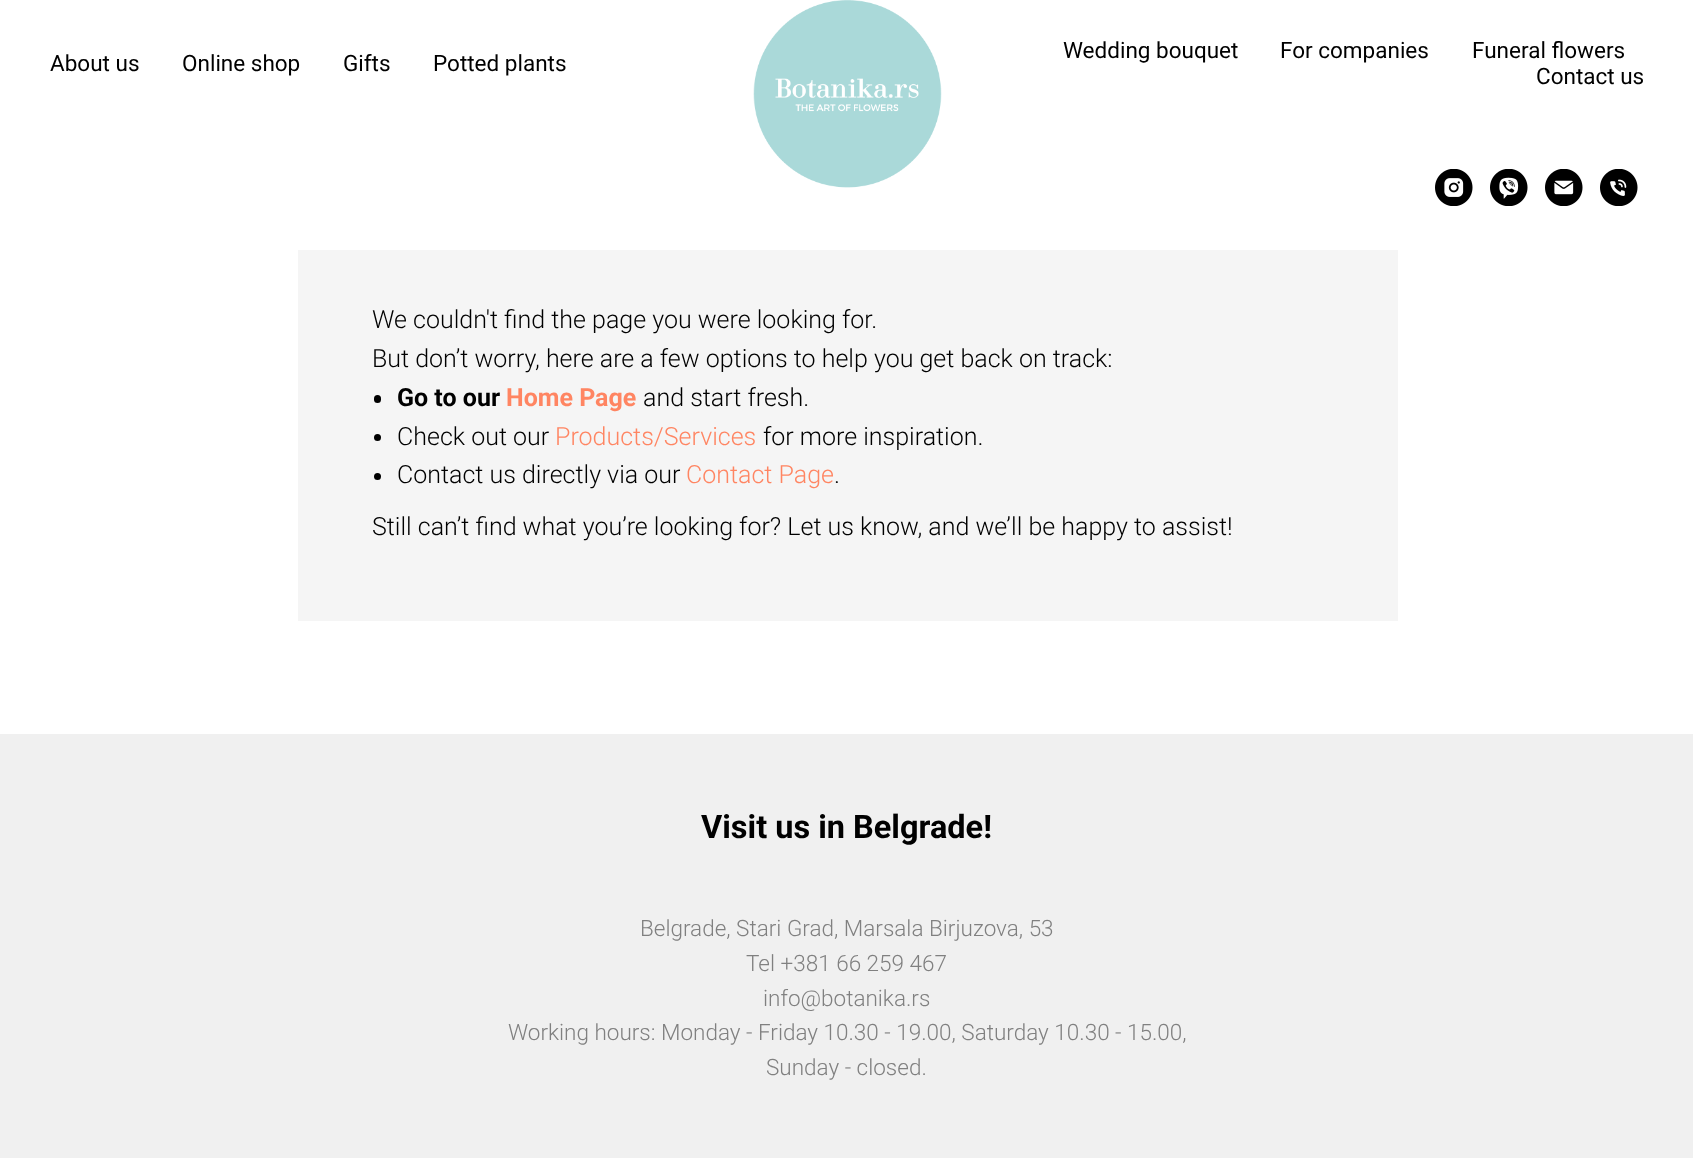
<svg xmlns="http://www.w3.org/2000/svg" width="1693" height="1158">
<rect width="100%" height="100%" fill="#fff"/>
<text x="50" y="71" style="font-family:Roboto;font-size:22.5px;fill:#000">About us</text>
<text x="182" y="71" style="font-family:Roboto;font-size:22.5px;fill:#000">Online shop</text>
<text x="343" y="71" style="font-family:Roboto;font-size:22.5px;fill:#000">Gifts</text>
<text x="433" y="71" style="font-family:Roboto;font-size:22.5px;fill:#000">Potted plants</text>
<image x="753" y="0" width="189" height="188" href="media/1.png"/>
<text x="1063" y="58" style="font-family:Roboto;font-size:22.5px;fill:#000">Wedding bouquet</text>
<text x="1280" y="58" style="font-family:Roboto;font-size:22.5px;fill:#000">For companies</text>
<text x="1472" y="58" style="font-family:Roboto;font-size:22.5px;fill:#000">Funeral flowers</text>
<text x="1536" y="84" style="font-family:Roboto;font-size:22.5px;fill:#000">Contact us</text>
<image x="1435" y="169" width="38" height="37" href="media/2.png"/>
<image x="1490" y="169" width="38" height="37" href="media/3.png"/>
<image x="1545" y="169" width="38" height="37" href="media/4.png"/>
<image x="1600" y="169" width="38" height="37" href="media/5.png"/>
<rect x="298" y="250" width="1100" height="371" fill="#f5f5f5"/>
<text x="372" y="328" style="font-family:Roboto;font-size:25px;font-weight:300;fill:#000">We couldn't find the page you were looking for.</text>
<text x="372" y="367" style="font-family:Roboto;font-size:25px;font-weight:300;fill:#000">But don’t worry, here are a few options to help you get back on track:</text>
<rect x="374" y="395" width="7" height="8" rx="3.5" fill="#000"/>
<text x="397" y="406" style="font-family:Roboto;font-size:25px;font-weight:bold;fill:#000">Go to our</text>
<text x="506" y="406" style="font-family:Roboto;font-size:25px;font-weight:bold;fill:#ff8562">Home Page</text>
<text x="643" y="406" style="font-family:Roboto;font-size:25px;font-weight:300;fill:#000">and start fresh.</text>
<circle cx="377.5" cy="437.5" r="3.5" fill="#000"/>
<text x="397" y="445" style="font-family:Roboto;font-size:25px;font-weight:300;fill:#000">Check out our</text>
<text x="555" y="445" style="font-family:Roboto;font-size:25px;font-weight:300;fill:#ff8562">Products/Services</text>
<text x="763" y="445" style="font-family:Roboto;font-size:25px;font-weight:300;fill:#000">for more inspiration.</text>
<circle cx="377.5" cy="476.5" r="3.5" fill="#000"/>
<text x="397" y="483" style="font-family:Roboto;font-size:25px;font-weight:300;fill:#000">Contact us directly via our</text>
<text x="686" y="483" style="font-family:Roboto;font-size:25px;font-weight:300;fill:#ff8562">Contact Page</text>
<text x="834" y="483" style="font-family:Roboto;font-size:25px;font-weight:300;fill:#000">.</text>
<text x="372" y="535" style="font-family:Roboto;font-size:25px;font-weight:300;fill:#000">Still can’t find what you’re looking for? Let us know, and we’ll be happy to assist!</text>
<rect y="734" width="1693" height="424" fill="#f0f0f0"/>
<text x="701" y="838" style="font-family:Roboto;font-size:32.5px;font-weight:bold;fill:#000">Visit us in Belgrade!</text>
<text x="640" y="936" style="font-family:Roboto;font-size:22.5px;font-weight:300;fill:#808080">Belgrade, Stari Grad, Marsala Birjuzova, 53</text>
<text x="746" y="971" style="font-family:Roboto;font-size:22.5px;font-weight:300;fill:#808080">Tel +381 66 259 467</text>
<text x="763" y="1006" style="font-family:Roboto;font-size:22.5px;font-weight:300;fill:#808080">info@botanika.rs</text>
<text x="508" y="1040" style="font-family:Roboto;font-size:22.5px;font-weight:300;fill:#808080">Working hours: Monday - Friday 10.30 - 19.00, Saturday 10.30 - 15.00,</text>
<text x="766" y="1075" style="font-family:Roboto;font-size:22.5px;font-weight:300;fill:#808080">Sunday - closed.</text>
</svg>
